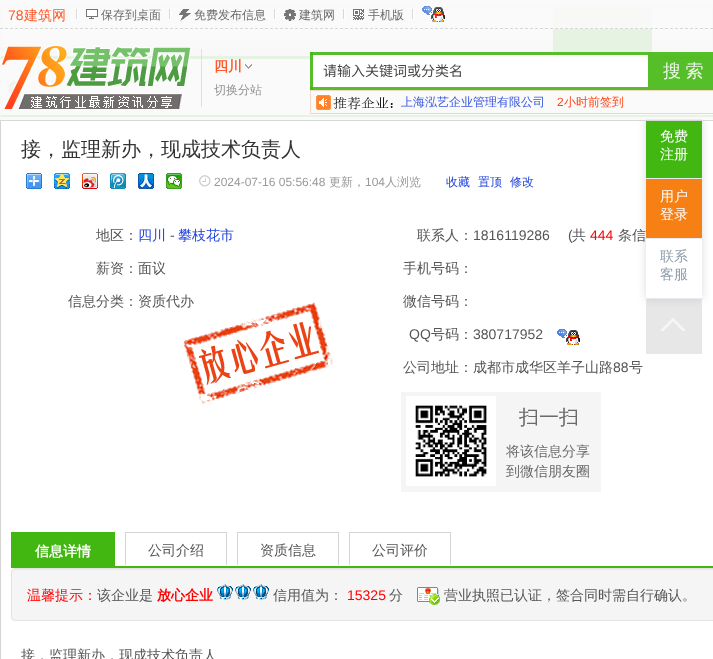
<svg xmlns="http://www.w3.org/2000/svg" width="713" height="659">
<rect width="100%" height="100%" fill="#fff"/>
<image x="0" y="35" width="713" height="23" href="media/1.png"/>
<rect y="7" width="713" height="1" fill="#e9e9e9"/>
<path d="M713 7v52l-1-3v-48z" fill="#e9e9e9"/>
<path d="M713 59h-713l1-3h711z" fill="#42b712"/>
<path d="M0 59v-52l1 1v48z" fill="#e9e9e9"/>
<image x="227" y="9" width="25" height="17" href="media/2.png"/>
<image x="299" y="9" width="25" height="17" href="media/3.png"/>
<rect x="553" y="8" width="99" height="48" fill="#42b712"/>
<image x="6" y="80" width="15" height="13" href="media/12.png"/>
<rect x="0.5" y="69.5" width="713" height="35" fill="none" stroke="#eee"/>
<path d="M0 115h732l-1 2h-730z" fill="#42b712"/>
<rect x="646" y="299" width="56" height="55" fill="#f2f2f2"/>
<image x="646" y="299" width="56" height="55" href="media/25.png"/>
<rect x="646" y="119" width="56" height="180" fill="#99999959" filter="blur(5px)"/>
<rect x="646" y="119" width="56" height="59" fill="#42b712"/>
<path d="M0 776v-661l1 2v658z" fill="#d4d4d4"/>
<rect width="713" height="121" fill="#f9f9f9e6"/>
<rect y="120" width="713" height="1" fill="#d4d4d4e6"/>
<rect x="227" y="8" width="425" height="21" fill="#f9f9f9e6"/>
<path d="M0 28.5h713" fill="none" stroke="#d4d4d4e6" stroke-dasharray="3 2"/>
<text x="8" y="20" style="font-family:Liberation Sans;font-size:14px;fill:#fe5928">78</text>
<text x="24" y="20" style="font-family:WenQuanYi Zen Hei;font-size:14px;font-weight:500;fill:#fe5928">建筑网</text>
<rect x="77" y="9" width="1" height="10" fill="#fff"/>
<rect x="76" y="9" width="1" height="10" fill="#d8d8d8"/>
<image x="86" y="9" width="12" height="10" href="media/4.png"/>
<text x="101" y="19" style="font-family:WenQuanYi Zen Hei;font-size:12px;font-weight:500;fill:#6b6b6b">保存到桌面</text>
<rect x="170" y="9" width="1" height="10" fill="#fff"/>
<rect x="169" y="9" width="1" height="10" fill="#d8d8d8"/>
<image x="179" y="9" width="12" height="12" href="media/5.png"/>
<text x="194" y="19" style="font-family:WenQuanYi Zen Hei;font-size:12px;font-weight:500;fill:#6b6b6b">免费发布信息</text>
<rect x="275" y="9" width="1" height="10" fill="#fff"/>
<rect x="274" y="9" width="1" height="10" fill="#d8d8d8"/>
<image x="284" y="9" width="12" height="12" href="media/6.png"/>
<text x="299" y="19" style="font-family:WenQuanYi Zen Hei;font-size:12px;font-weight:500;fill:#6b6b6b">建筑网</text>
<rect x="344" y="9" width="1" height="10" fill="#fff"/>
<rect x="343" y="9" width="1" height="10" fill="#d8d8d8"/>
<image x="353" y="9" width="11" height="11" href="media/7.png"/>
<text x="368" y="19" style="font-family:WenQuanYi Zen Hei;font-size:12px;font-weight:500;fill:#6b6b6b">手机版</text>
<rect x="413" y="9" width="1" height="10" fill="#fff"/>
<rect x="412" y="9" width="1" height="10" fill="#d8d8d8"/>
<image x="422" y="6" width="23" height="16" href="media/8.png"/>
<image x="1" y="45" width="190" height="64" href="media/9.png"/>
<rect x="201" y="49" width="1" height="58" fill="#dddddde6"/>
<text x="214" y="71" style="font-family:WenQuanYi Zen Hei;font-size:14px;font-weight:bold;fill:#fe5928">四川</text>
<image x="245" y="64" width="7" height="5" href="media/10.png"/>
<text x="214" y="94" style="font-family:WenQuanYi Zen Hei;font-size:12px;font-weight:500;fill:#939393">切换分站</text>
<rect x="310" y="55" width="338" height="32" fill="#ffffffe6"/>
<rect x="310" y="52" width="338" height="3" fill="#55be2a"/>
<rect x="310" y="87" width="338" height="3" fill="#55be2a"/>
<rect x="310" y="52" width="3" height="38" fill="#42b712e6"/>
<text x="323" y="76" style="font-family:Noto Sans CJK SC;font-size:14px;fill:#474747">请输入关键词或分类名</text>
<rect x="648" y="52" width="65" height="38" fill="#42b712e6"/>
<text x="663" y="77" word-spacing="-1" style="font-family:WenQuanYi Zen Hei;font-size:18px;font-weight:500;fill:#eef8ea">搜 索</text>
<rect x="310" y="113" width="403" height="1" fill="#d9d9d9"/>
<image x="316" y="95" width="78" height="15" href="media/11.png"/>
<rect x="310.5" y="90.5" width="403" height="23" fill="none" stroke="#f2d6bde6"/>
<text x="401" y="106" style="font-family:WenQuanYi Zen Hei;font-size:12px;font-weight:500;fill:#3856e0">上海泓艺企业管理有限公司</text>
<text x="557" y="106" style="font-family:Liberation Sans;font-size:12px;fill:#fe4719">2</text>
<text x="564" y="106" style="font-family:WenQuanYi Zen Hei;font-size:12px;font-weight:500;fill:#fe4719">小时前签到</text>
<rect x="646" y="239" width="56" height="59" fill="#fff"/>
<rect x="646" y="178" width="56" height="1" fill="#e7eaf1"/>
<text x="660" y="141" style="font-family:WenQuanYi Zen Hei;font-size:14px;font-weight:500;fill:#fff">免费</text>
<text x="660" y="159" style="font-family:WenQuanYi Zen Hei;font-size:14px;font-weight:500;fill:#fff">注册</text>
<rect x="646" y="179" width="56" height="59" fill="#f78015"/>
<rect x="646" y="238" width="56" height="1" fill="#e7eaf1"/>
<text x="660" y="201" style="font-family:WenQuanYi Zen Hei;font-size:14px;font-weight:500;fill:#fff">用户</text>
<text x="660" y="219" style="font-family:WenQuanYi Zen Hei;font-size:14px;font-weight:500;fill:#fff">登录</text>
<rect x="646" y="298" width="56" height="1" fill="#e7eaf1"/>
<text x="660" y="261" style="font-family:WenQuanYi Zen Hei;font-size:14px;font-weight:500;fill:#8e9ca9">联系</text>
<text x="660" y="279" style="font-family:WenQuanYi Zen Hei;font-size:14px;font-weight:500;fill:#8e9ca9">客服</text>
<text x="21" y="156" style="font-family:WenQuanYi Zen Hei;font-size:20px;font-weight:500;fill:#333">接，监理新办，现成技术负责人</text>
<image x="26" y="173" width="16" height="16" href="media/13.png"/>
<image x="54" y="173" width="16" height="16" href="media/14.png"/>
<image x="82" y="173" width="16" height="16" href="media/15.png"/>
<image x="110" y="173" width="16" height="16" href="media/16.png"/>
<image x="138" y="173" width="16" height="16" href="media/17.png"/>
<image x="166" y="173" width="16" height="16" href="media/18.png"/>
<image x="199" y="175" width="12" height="12" href="media/19.png"/>
<text x="214" y="186" style="font-family:Liberation Sans;font-size:12px;fill:#999">2024-07-16 05:56:48</text>
<text x="329" y="186" style="font-family:WenQuanYi Zen Hei;font-size:12px;font-weight:500;fill:#999">更新，</text>
<text x="365" y="186" style="font-family:Liberation Sans;font-size:12px;fill:#999">104</text>
<text x="385" y="186" style="font-family:WenQuanYi Zen Hei;font-size:12px;font-weight:500;fill:#999">人浏览</text>
<text x="446" y="186" style="font-family:WenQuanYi Zen Hei;font-size:12px;font-weight:500;fill:#24d">收藏</text>
<text x="478" y="186" style="font-family:WenQuanYi Zen Hei;font-size:12px;font-weight:500;fill:#24d">置顶</text>
<text x="510" y="186" style="font-family:WenQuanYi Zen Hei;font-size:12px;font-weight:500;fill:#24d">修改</text>
<image x="183" y="302" width="150" height="102" href="media/20.png"/>
<text x="96" y="240" style="font-family:WenQuanYi Zen Hei;font-size:14px;font-weight:500;fill:#555">地区：</text>
<text x="138" y="240" style="font-family:WenQuanYi Zen Hei;font-size:14px;font-weight:500;fill:#24d">四川</text>
<text x="170" y="240" style="font-family:Liberation Sans;font-size:14px;fill:#555">-</text>
<text x="178" y="240" style="font-family:WenQuanYi Zen Hei;font-size:14px;font-weight:500;fill:#24d">攀枝花市</text>
<text x="96" y="273" style="font-family:WenQuanYi Zen Hei;font-size:14px;font-weight:500;fill:#555">薪资：面议</text>
<text x="68" y="306" style="font-family:WenQuanYi Zen Hei;font-size:14px;font-weight:500;fill:#555">信息分类：资质代办</text>
<text x="417" y="240" style="font-family:WenQuanYi Zen Hei;font-size:14px;font-weight:500;fill:#555">联系人：</text>
<text x="473" y="240" style="font-family:Liberation Sans;font-size:14px;fill:#555">1816119286</text>
<text x="568" y="240" style="font-family:Liberation Sans;font-size:14px;fill:#555">(</text>
<text x="572" y="240" style="font-family:WenQuanYi Zen Hei;font-size:14px;font-weight:500;fill:#555">共</text>
<text x="590" y="240" style="font-family:Liberation Sans;font-size:14px;fill:#f00">444</text>
<text x="618" y="240" style="font-family:WenQuanYi Zen Hei;font-size:14px;font-weight:500;fill:#555">条信</text>
<text x="403" y="273" style="font-family:WenQuanYi Zen Hei;font-size:14px;font-weight:500;fill:#555">手机号码：</text>
<text x="403" y="306" style="font-family:WenQuanYi Zen Hei;font-size:14px;font-weight:500;fill:#555">微信号码：</text>
<text x="409" y="339" style="font-family:Liberation Sans;font-size:14px;fill:#555">QQ</text>
<text x="431" y="339" style="font-family:WenQuanYi Zen Hei;font-size:14px;font-weight:500;fill:#555">号码：</text>
<text x="473" y="339" style="font-family:Liberation Sans;font-size:14px;fill:#555">380717952</text>
<image x="557" y="329" width="23" height="16" href="media/21.png"/>
<text x="403" y="372" style="font-family:WenQuanYi Zen Hei;font-size:14px;font-weight:500;fill:#555">公司地址：成都市成华区羊子山路</text>
<text x="613" y="372" style="font-family:Liberation Sans;font-size:14px;fill:#555">88</text>
<text x="629" y="372" style="font-family:WenQuanYi Zen Hei;font-size:14px;font-weight:500;fill:#555">号</text>
<rect x="401" y="392" width="200" height="100" fill="#f5f5f5"/>
<image x="406" y="396" width="90" height="90" href="media/22.png"/>
<text x="519" y="424" style="font-family:WenQuanYi Zen Hei;font-size:20px;font-weight:500;fill:#6b6b6b">扫一扫</text>
<text x="506" y="456" style="font-family:WenQuanYi Zen Hei;font-size:14px;font-weight:500;fill:#6b6b6b">将该信息分享</text>
<text x="506" y="476" style="font-family:WenQuanYi Zen Hei;font-size:14px;font-weight:500;fill:#6b6b6b">到微信朋友圈</text>
<rect x="115" y="566" width="598" height="2" fill="#42b712"/>
<rect x="11" y="532" width="104" height="36" fill="#42b712"/>
<text x="35" y="556" style="font-family:WenQuanYi Zen Hei;font-size:14px;font-weight:bold;fill:#fff">信息详情</text>
<rect x="125" y="532" width="102" height="1" fill="#d4d4d4"/>
<rect x="226" y="532" width="1" height="33" fill="#d4d4d4"/>
<rect x="125" y="532" width="1" height="33" fill="#d4d4d4"/>
<text x="148" y="555" style="font-family:WenQuanYi Zen Hei;font-size:14px;font-weight:500;fill:#555">公司介绍</text>
<rect x="237" y="532" width="102" height="1" fill="#d4d4d4"/>
<rect x="338" y="532" width="1" height="33" fill="#d4d4d4"/>
<rect x="237" y="532" width="1" height="33" fill="#d4d4d4"/>
<text x="260" y="555" style="font-family:WenQuanYi Zen Hei;font-size:14px;font-weight:500;fill:#555">资质信息</text>
<rect x="349" y="532" width="102" height="1" fill="#d4d4d4"/>
<rect x="450" y="532" width="1" height="33" fill="#d4d4d4"/>
<rect x="349" y="532" width="1" height="33" fill="#d4d4d4"/>
<text x="372" y="555" style="font-family:WenQuanYi Zen Hei;font-size:14px;font-weight:500;fill:#555">公司评价</text>
<rect x="11" y="568" width="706" height="53" rx="4" fill="#f5f5f5"/>
<path d="M15 570h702c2 0 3 1 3 3c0-2-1-4-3-4h-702c-2 0-3 2-3 4c0-2 1-3 3-3z" fill="#e9e9e9"/>
<rect x="11.5" y="568.5" width="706" height="52" rx="3.5" fill="none" stroke="#e3e3e3"/>
<text x="27" y="600" style="font-family:WenQuanYi Zen Hei;font-size:14px;font-weight:500;fill:#f00">温馨提示：</text>
<text x="97" y="600" style="font-family:WenQuanYi Zen Hei;font-size:14px;font-weight:500;fill:#555">该企业是</text>
<text x="157" y="600" style="font-family:WenQuanYi Zen Hei;font-size:14px;font-weight:bold;fill:#f00">放心企业</text>
<image x="217" y="584" width="52" height="16" href="media/23.png"/>
<text x="273" y="600" style="font-family:WenQuanYi Zen Hei;font-size:14px;font-weight:500;fill:#555">信用值为：</text>
<text x="347" y="600" style="font-family:Liberation Sans;font-size:14px;fill:#f00">15325</text>
<text x="389" y="600" style="font-family:WenQuanYi Zen Hei;font-size:14px;font-weight:500;fill:#555">分</text>
<image x="417" y="587" width="23" height="18" href="media/24.png"/>
<text x="444" y="600" style="font-family:WenQuanYi Zen Hei;font-size:14px;font-weight:500;fill:#555">营业执照已认证，签合同时需自行确认。</text>
<text x="21" y="660" style="font-family:WenQuanYi Zen Hei;font-size:14px;font-weight:500;fill:#555">接，监理新办，现成技术负责人</text>
</svg>
